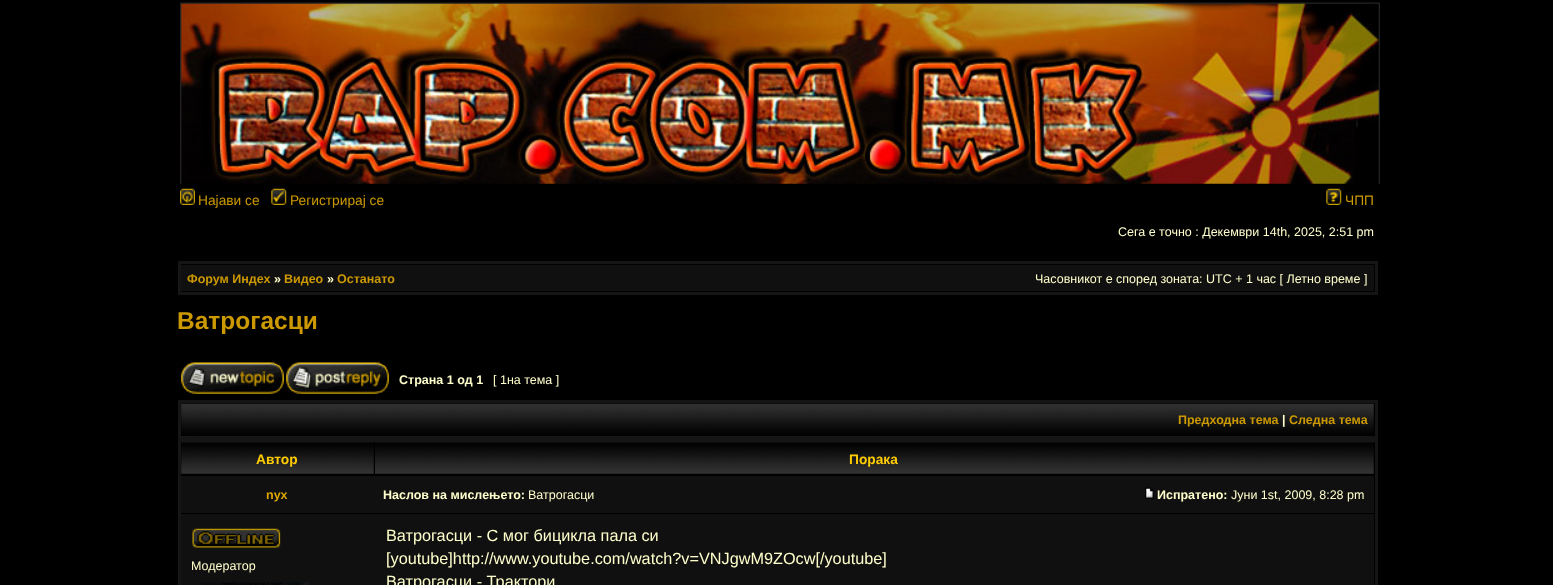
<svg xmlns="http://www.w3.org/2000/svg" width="1553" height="585">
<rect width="100%" height="100%" fill="#000"/>
<image x="180" y="2" width="1200" height="182" href="media/1.png"/>
<image x="180" y="188" width="15" height="17" href="media/2.png"/>
<text x="198" y="205" style="font-family:Liberation Sans;font-size:13.75px;fill:#c90">Најави се</text>
<image x="271" y="188" width="16" height="17" href="media/3.png"/>
<text x="290" y="205" style="font-family:Liberation Sans;font-size:13.75px;fill:#c90">Регистрирај се</text>
<image x="1326" y="188" width="16" height="17" href="media/4.png"/>
<text x="1345" y="205" style="font-family:Liberation Sans;font-size:13.75px;fill:#c90">ЧПП</text>
<text x="1118" y="236" style="font-family:Liberation Sans;font-size:12.5px;fill:#ffc">Сега е точно : Декември 14th, 2025, 2:51 pm</text>
<rect x="179.5" y="262.5" width="1197" height="31" fill="none" stroke="#151515" stroke-width="3"/>
<rect x="181" y="265" width="1193" height="26" fill="#101010"/>
<text x="187" y="283" style="font-family:Liberation Sans;font-size:12.5px;font-weight:bold;fill:#c90">Форум Индех</text>
<text x="274" y="283" style="font-family:Liberation Sans;font-size:12.5px;font-weight:bold;fill:#ffc">»</text>
<text x="284" y="283" style="font-family:Liberation Sans;font-size:12.5px;font-weight:bold;fill:#c90">Видео</text>
<text x="327" y="283" style="font-family:Liberation Sans;font-size:12.5px;font-weight:bold;fill:#ffc">»</text>
<text x="337" y="283" style="font-family:Liberation Sans;font-size:12.5px;font-weight:bold;fill:#c90">Останато</text>
<text x="1035" y="283" style="font-family:Liberation Sans;font-size:12.5px;fill:#ffc">Часовникот е според зоната: UTC + 1 час [ Летно време ]</text>
<text x="177" y="329" style="font-family:Liberation Sans;font-size:24.5px;font-weight:bold;fill:#c90">Ватрогасци</text>
<image x="181" y="362" width="103" height="32" href="media/5.png"/>
<image x="286" y="362" width="103" height="32" href="media/6.png"/>
<text x="399" y="384" style="font-family:Liberation Sans;font-size:12.5px;font-weight:bold;fill:#ffc">Страна 1 oд 1</text>
<text x="493" y="384" style="font-family:Liberation Sans;font-size:12.5px;fill:#ffc">[ 1на тема ]</text>
<rect x="179.5" y="401.5" width="1197" height="36" fill="none" stroke="#151515" stroke-width="3"/>
<image x="181" y="403" width="1193" height="32" href="media/7.png"/>
<text x="1178" y="424" style="font-family:Liberation Sans;font-size:12.5px;font-weight:bold;fill:#c90">Предходна тема</text>
<text x="1282" y="424" style="font-family:Liberation Sans;font-size:12.5px;font-weight:bold;fill:#ffc">|</text>
<text x="1289" y="424" style="font-family:Liberation Sans;font-size:12.5px;font-weight:bold;fill:#c90">Следна тема</text>
<rect x="179.5" y="440.5" width="1197" height="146" fill="none" stroke="#151515" stroke-width="3"/>
<image x="181" y="442" width="193" height="33" href="media/8.png"/>
<text x="256" y="464" style="font-family:Liberation Sans;font-size:13.75px;font-weight:bold;fill:#fc0">Автор</text>
<image x="375" y="442" width="999" height="33" href="media/9.png"/>
<text x="849" y="464" style="font-family:Liberation Sans;font-size:13.75px;font-weight:bold;fill:#fc0">Порака</text>
<rect x="181" y="476" width="1193" height="37" fill="#101010"/>
<text x="266" y="499" style="font-family:Liberation Sans;font-size:12.5px;font-weight:bold;fill:#dda600">nyx</text>
<text x="383" y="499" style="font-family:Liberation Sans;font-size:12.5px;font-weight:bold;fill:#ffc">Наслов на мислењето:</text>
<text x="528" y="499" style="font-family:Liberation Sans;font-size:12.5px;fill:#ffc">Ватрогасци</text>
<image x="1145" y="487" width="9" height="12" href="media/10.png"/>
<text x="1157" y="499" style="font-family:Liberation Sans;font-size:12.5px;font-weight:bold;fill:#ffc">Испратено:</text>
<text x="1231" y="499" style="font-family:Liberation Sans;font-size:12.5px;fill:#ffc">Jуни 1st, 2009, 8:28 pm</text>
<rect x="181" y="514" width="1193" height="71" fill="#101010"/>
<image x="192" y="528" width="89" height="20" href="media/11.png"/>
<text x="191" y="570" style="font-family:Liberation Sans;font-size:12.5px;fill:#ffc">Модератор</text>
<image x="196" y="582" width="120" height="3" href="media/12.png"/>
<text x="386" y="541" style="font-family:Liberation Sans;font-size:16.25px;fill:#ffc">Ватрогасци - С мог бицикла пала си</text>
<text x="386" y="564" style="font-family:Liberation Sans;font-size:16.25px;fill:#ffc">[youtube]http://www.youtube.com/watch?v=VNJgwM9ZOcw[/youtube]</text>
<text x="386" y="587" style="font-family:Liberation Sans;font-size:16.25px;fill:#ffc">Ватрогасци - Трактори</text>
</svg>
